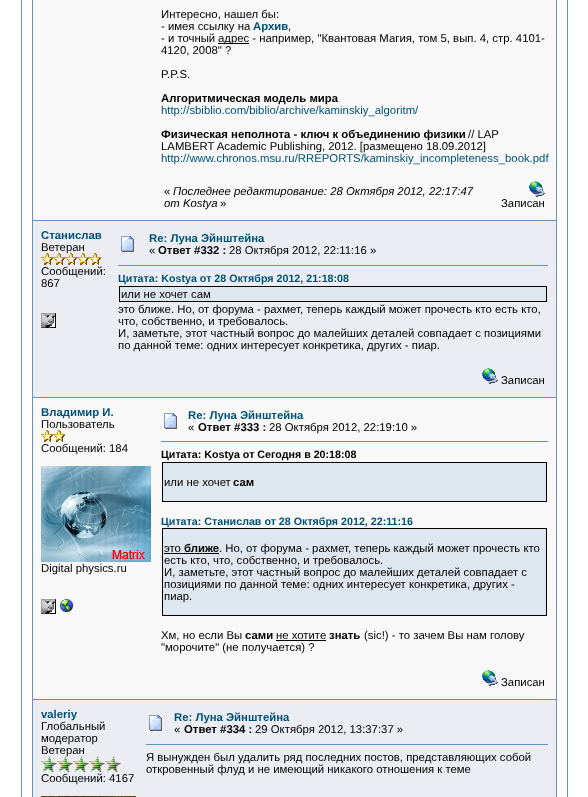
<svg xmlns="http://www.w3.org/2000/svg" width="588" height="797">
<rect width="100%" height="100%" fill="#fff"/>
<rect x="21.5" y="-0.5" width="546" height="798" fill="none" stroke="#6394bd"/>
<rect x="32" width="525" height="797" fill="#6394bd"/>
<rect x="33" width="523" height="220" fill="#f8f8f8"/>
<text x="161" y="18" style="font-family:Liberation Sans;font-size:11.35px;fill:#000">Интересно, нашел бы:</text>
<text x="161" y="30" style="font-family:Liberation Sans;font-size:11.35px;fill:#000">- имея ссылку на</text>
<text x="253" y="30" style="font-family:Liberation Sans;font-size:11.35px;font-weight:bold;fill:#005177">Архив</text>
<text x="288" y="30" style="font-family:Liberation Sans;font-size:11.35px;fill:#000">,</text>
<text x="161" y="42" style="font-family:Liberation Sans;font-size:11.35px;fill:#000">- и точный</text>
<rect x="218" y="43" width="31" height="1" fill="#000"/>
<text x="218" y="42" style="font-family:Liberation Sans;font-size:11.35px;fill:#000">адрес - например, "Квантовая Магия, том 5, вып. 4, стр. 4101-</text>
<text x="161" y="54" style="font-family:Liberation Sans;font-size:11.35px;fill:#000">4120, 2008" ?</text>
<text x="161" y="78" style="font-family:Liberation Sans;font-size:11.35px;fill:#000">P.P.S.</text>
<text x="161" y="102" style="font-family:Liberation Sans;font-size:11.35px;font-weight:bold;fill:#000">Алгоритмическая модель мира</text>
<text x="161" y="114" style="font-family:Liberation Sans;font-size:11.35px;fill:#005177">http://sbiblio.com/biblio/archive/kaminskiy_algoritm/</text>
<text x="161" y="138" style="font-family:Liberation Sans;font-size:11.35px;font-weight:bold;fill:#000">Физическая неполнота - ключ к объединению физики</text>
<text x="468" y="138" style="font-family:Liberation Sans;font-size:11.35px;fill:#000">// LAP</text>
<text x="161" y="150" style="font-family:Liberation Sans;font-size:11.35px;fill:#000">LAMBERT Academic Publishing, 2012. [размещено 18.09.2012]</text>
<text x="161" y="162" style="font-family:Liberation Sans;font-size:11.35px;fill:#005177">http://www.chronos.msu.ru/RREPORTS/kaminskiy_incompleteness_book.pdf</text>
<text x="164" y="195" style="font-family:Liberation Sans;font-size:11.35px;fill:#000">«</text>
<text x="173" y="195" style="font-family:Liberation Sans;font-size:11.35px;font-style:italic;fill:#000">Последнее редактирование: 28 Октября 2012, 22:17:47</text>
<text x="164" y="207" style="font-family:Liberation Sans;font-size:11.35px;font-style:italic;fill:#000">от Kostya</text>
<text x="220" y="207" style="font-family:Liberation Sans;font-size:11.35px;fill:#000">»</text>
<image x="529" y="181" width="16" height="16" href="media/1.png"/>
<text x="501" y="207" style="font-family:Liberation Sans;font-size:11.35px;fill:#000">Записан</text>
<rect x="33" y="221" width="523" height="176" fill="#ecedf3"/>
<text x="41" y="239" style="font-family:Liberation Sans;font-size:11.35px;font-weight:bold;fill:#005177">Станислав</text>
<text x="41" y="251" style="font-family:Liberation Sans;font-size:11.35px;fill:#000">Ветеран</text>
<image x="41" y="253" width="12" height="12" href="media/2.png"/>
<image x="53" y="253" width="12" height="12" href="media/2.png"/>
<image x="65" y="253" width="12" height="12" href="media/3.png"/>
<image x="77" y="253" width="12" height="12" href="media/2.png"/>
<image x="89" y="253" width="12" height="12" href="media/2.png"/>
<text x="41" y="275" style="font-family:Liberation Sans;font-size:11.35px;fill:#000">Сообщений:</text>
<text x="41" y="287" style="font-family:Liberation Sans;font-size:11.35px;fill:#000">867</text>
<image x="41" y="313" width="15" height="15" href="media/4.png"/>
<image x="121" y="236" width="13" height="16" href="media/5.png"/>
<text x="149" y="242" style="font-family:Liberation Sans;font-size:11.35px;font-weight:bold;fill:#005177">Re: Луна Эйнштейна</text>
<text x="149" y="254" style="font-family:Liberation Sans;font-size:11.35px;fill:#000">«</text>
<text x="158" y="254" style="font-family:Liberation Sans;font-size:11.35px;font-weight:bold;fill:#000">Ответ #332 :</text>
<text x="229" y="254" style="font-family:Liberation Sans;font-size:11.35px;fill:#000">28 Октября 2012, 22:11:16 »</text>
<rect x="118" y="265" width="430" height="1" fill="#6394bd"/>
<text x="118" y="282" style="font-family:Liberation Sans;font-size:10.7px;font-weight:bold;fill:#005177">Цитата: Kostya от 28 Октября 2012, 21:18:08</text>
<rect x="119.5" y="286.5" width="427" height="15" fill="#dee7ef" stroke="#000"/>
<text x="121" y="298" style="font-family:Liberation Sans;font-size:11.35px;fill:#000">или не хочет сам</text>
<text x="118" y="313" style="font-family:Liberation Sans;font-size:11.35px;fill:#000">это ближе. Но, от форума - рахмет, теперь каждый может прочесть кто есть кто,</text>
<text x="118" y="325" style="font-family:Liberation Sans;font-size:11.35px;fill:#000">что, собственно, и требовалось.</text>
<text x="118" y="337" style="font-family:Liberation Sans;font-size:11.35px;fill:#000">И, заметьте, этот частный вопрос до малейших деталей совпадает с позициями</text>
<text x="118" y="349" style="font-family:Liberation Sans;font-size:11.35px;fill:#000">по данной теме: одних интересует конкретика, других - пиар.</text>
<image x="482" y="368" width="16" height="16" href="media/6.png"/>
<text x="501" y="384" style="font-family:Liberation Sans;font-size:11.35px;fill:#000">Записан</text>
<rect x="33" y="398" width="523" height="301" fill="#f8f8f8"/>
<text x="41" y="416" style="font-family:Liberation Sans;font-size:11.35px;font-weight:bold;fill:#005177">Владимир И.</text>
<text x="41" y="428" style="font-family:Liberation Sans;font-size:11.35px;fill:#000">Пользователь</text>
<image x="41" y="430" width="12" height="12" href="media/7.png"/>
<image x="53" y="430" width="12" height="12" href="media/7.png"/>
<text x="41" y="452" style="font-family:Liberation Sans;font-size:11.35px;fill:#000">Сообщений: 184</text>
<image x="41" y="466" width="110" height="96" href="media/8.png"/>
<text x="41" y="572" style="font-family:Liberation Sans;font-size:11.35px;fill:#000">Digital physics.ru</text>
<image x="41" y="599" width="15" height="15" href="media/4.png"/>
<image x="60" y="599" width="13" height="13" href="media/9.png"/>
<image x="164" y="413" width="13" height="16" href="media/10.png"/>
<text x="188" y="419" style="font-family:Liberation Sans;font-size:11.35px;font-weight:bold;fill:#005177">Re: Луна Эйнштейна</text>
<text x="188" y="431" style="font-family:Liberation Sans;font-size:11.35px;fill:#000">«</text>
<text x="198" y="431" style="font-family:Liberation Sans;font-size:11.35px;font-weight:bold;fill:#000">Ответ #333 :</text>
<text x="269" y="431" style="font-family:Liberation Sans;font-size:11.35px;fill:#000">28 Октября 2012, 22:19:10 »</text>
<rect x="161" y="441" width="387" height="1" fill="#6394bd"/>
<text x="161" y="458" style="font-family:Liberation Sans;font-size:10.7px;font-weight:bold;fill:#000">Цитата: Kostya от Сегодня в 20:18:08</text>
<rect x="162.5" y="462.5" width="384" height="39" fill="#dee7ef" stroke="#000"/>
<text x="164" y="486" style="font-family:Liberation Sans;font-size:11.35px;fill:#000">или не хочет</text>
<text x="233" y="486" style="font-family:Liberation Sans;font-size:11.35px;font-weight:bold;fill:#000">сам</text>
<text x="161" y="525" style="font-family:Liberation Sans;font-size:10.7px;font-weight:bold;fill:#005177">Цитата: Станислав от 28 Октября 2012, 22:11:16</text>
<rect x="162.5" y="528.5" width="384" height="87" fill="#dee7ef" stroke="#000"/>
<text x="164" y="552" style="font-family:Liberation Sans;font-size:11.35px;fill:#000">это</text>
<rect x="164" y="553" width="55" height="1" fill="#000"/>
<text x="184" y="552" style="font-family:Liberation Sans;font-size:11.35px;font-weight:bold;fill:#000">ближе</text>
<text x="219" y="552" style="font-family:Liberation Sans;font-size:11.35px;fill:#000">. Но, от форума - рахмет, теперь каждый может прочесть кто</text>
<text x="164" y="564" style="font-family:Liberation Sans;font-size:11.35px;fill:#000">есть кто, что, собственно, и требовалось.</text>
<text x="164" y="576" style="font-family:Liberation Sans;font-size:11.35px;fill:#000">И, заметьте, этот частный вопрос до малейших деталей совпадает с</text>
<text x="164" y="588" style="font-family:Liberation Sans;font-size:11.35px;fill:#000">позициями по данной теме: одних интересует конкретика, других -</text>
<text x="164" y="600" style="font-family:Liberation Sans;font-size:11.35px;fill:#000">пиар.</text>
<text x="161" y="639" style="font-family:Liberation Sans;font-size:11.35px;fill:#000">Хм, но если Вы</text>
<text x="245" y="639" style="font-family:Liberation Sans;font-size:11.35px;font-weight:bold;fill:#000">сами</text>
<text x="276" y="639" style="font-family:Liberation Sans;font-size:11.35px;fill:#000">не хотите</text>
<rect x="276" y="640" width="50" height="1" fill="#000"/>
<text x="329" y="639" style="font-family:Liberation Sans;font-size:11.35px;font-weight:bold;fill:#000">знать</text>
<text x="364" y="639" style="font-family:Liberation Sans;font-size:11.35px;fill:#000">(sic!) - то зачем Вы нам голову</text>
<text x="161" y="651" style="font-family:Liberation Sans;font-size:11.35px;fill:#000">"морочите" (не получается) ?</text>
<image x="482" y="670" width="16" height="16" href="media/1.png"/>
<text x="501" y="686" style="font-family:Liberation Sans;font-size:11.35px;fill:#000">Записан</text>
<rect x="33" y="700" width="523" height="97" fill="#ecedf3"/>
<text x="41" y="718" style="font-family:Liberation Sans;font-size:11.35px;font-weight:bold;fill:#005177">valeriy</text>
<text x="41" y="730" style="font-family:Liberation Sans;font-size:11.35px;fill:#000">Глобальный</text>
<text x="41" y="742" style="font-family:Liberation Sans;font-size:11.35px;fill:#000">модератор</text>
<text x="41" y="754" style="font-family:Liberation Sans;font-size:11.35px;fill:#000">Ветеран</text>
<image x="41" y="756" width="16" height="16" href="media/11.png"/>
<image x="57" y="756" width="16" height="16" href="media/12.png"/>
<image x="73" y="756" width="16" height="16" href="media/11.png"/>
<image x="89" y="756" width="16" height="16" href="media/11.png"/>
<image x="105" y="756" width="16" height="16" href="media/11.png"/>
<text x="41" y="782" style="font-family:Liberation Sans;font-size:11.35px;fill:#000">Сообщений: 4167</text>
<image x="41" y="796" width="95" height="1" href="media/13.png"/>
<image x="149" y="715" width="13" height="16" href="media/5.png"/>
<text x="174" y="721" style="font-family:Liberation Sans;font-size:11.35px;font-weight:bold;fill:#005177">Re: Луна Эйнштейна</text>
<text x="174" y="733" style="font-family:Liberation Sans;font-size:11.35px;fill:#000">«</text>
<text x="184" y="733" style="font-family:Liberation Sans;font-size:11.35px;font-weight:bold;fill:#000">Ответ #334 :</text>
<text x="255" y="733" style="font-family:Liberation Sans;font-size:11.35px;fill:#000">29 Октября 2012, 13:37:37 »</text>
<rect x="146" y="744" width="402" height="1" fill="#6394bd"/>
<text x="146" y="761" style="font-family:Liberation Sans;font-size:11.35px;fill:#000">Я вынужден был удалить ряд последних постов, представляющих собой</text>
<text x="146" y="773" style="font-family:Liberation Sans;font-size:11.35px;fill:#000">откровенный флуд и не имеющий никакого отношения к теме</text>
</svg>
